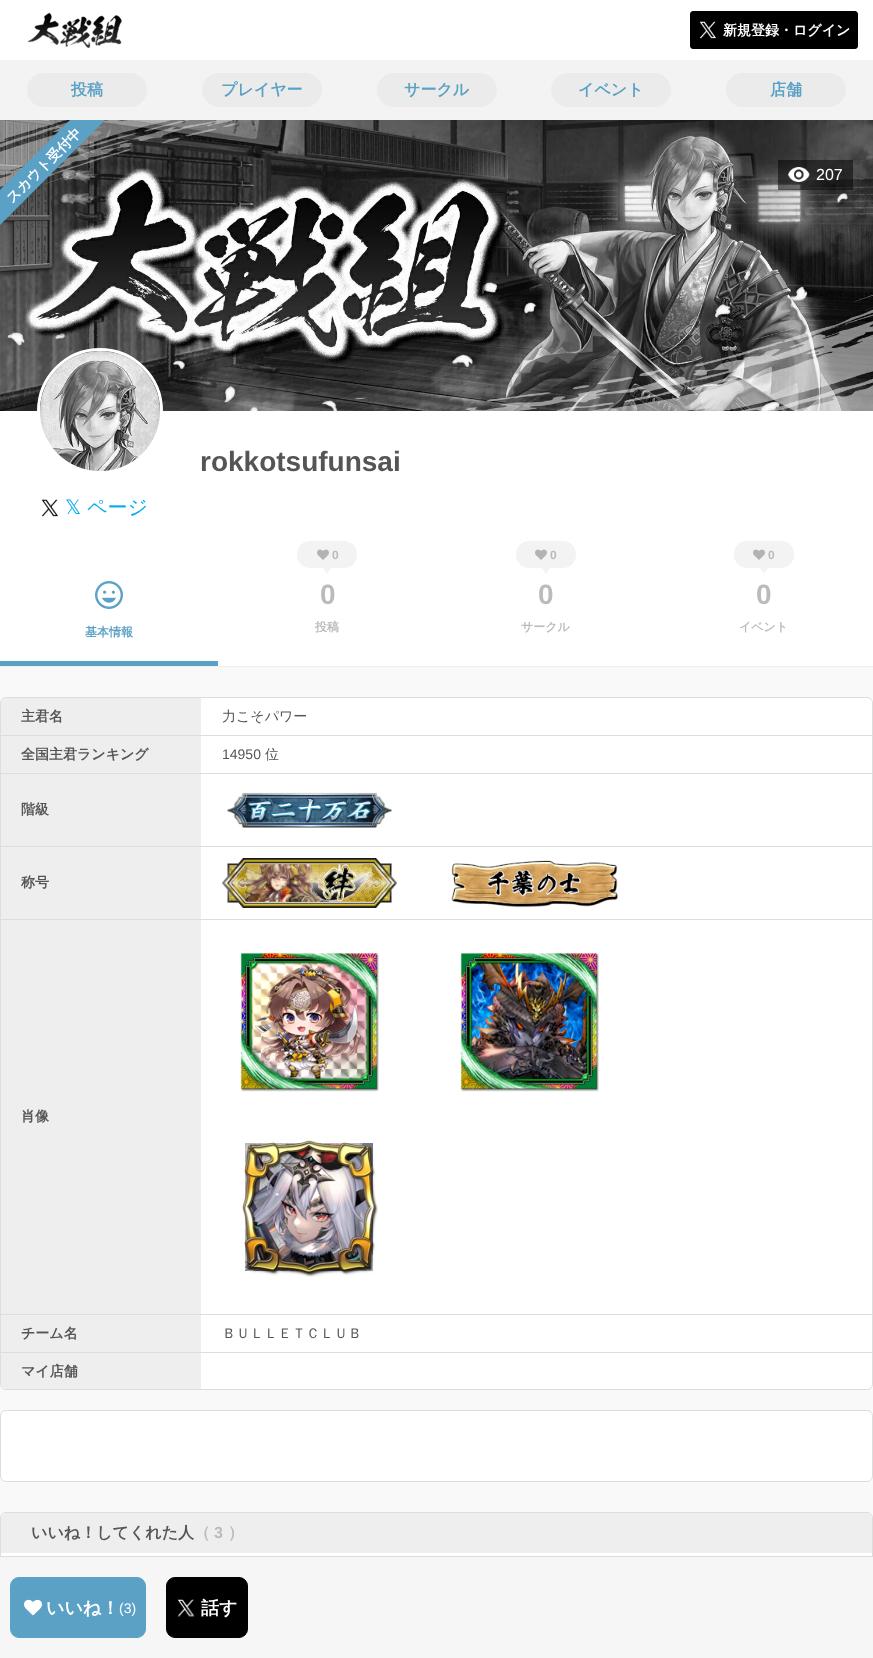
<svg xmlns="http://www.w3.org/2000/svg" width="873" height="1658">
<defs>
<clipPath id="clip1"><rect y="120" width="873" height="291"/></clipPath>
</defs>
<rect width="100%" height="100%" fill="#f9f9f9"/>
<rect width="873" height="60" fill="#fff"/>
<image x="27" y="12" width="95" height="37" href="media/1.png"/>
<rect x="690.5" y="11.5" width="167" height="37" rx="2.5" fill="#000" stroke="#000"/>
<image x="699" y="21" width="17" height="18" href="media/2.png"/>
<text x="723" y="35" style="font-family:WenQuanYi Zen Hei;font-size:14px;font-weight:bold;fill:#fff">新規登録・ログイン</text>
<rect y="60" width="873" height="60" fill="#f3f3f3"/>
<rect x="27" y="73" width="120" height="34" rx="17" fill="#ebebeb"/>
<text x="71" y="95" style="font-family:WenQuanYi Zen Hei;font-size:16px;font-weight:bold;fill:#5ba1c5">投稿</text>
<rect x="202" y="73" width="120" height="34" rx="17" fill="#ebebeb"/>
<text x="221" y="95" style="font-family:WenQuanYi Zen Hei;font-size:16px;font-weight:bold;fill:#5ba1c5">プレイヤー</text>
<rect x="377" y="73" width="120" height="34" rx="17" fill="#ebebeb"/>
<text x="404" y="95" style="font-family:WenQuanYi Zen Hei;font-size:16px;font-weight:bold;fill:#5ba1c5">サークル</text>
<rect x="551" y="73" width="120" height="34" rx="17" fill="#ebebeb"/>
<text x="578" y="95" style="font-family:WenQuanYi Zen Hei;font-size:16px;font-weight:bold;fill:#5ba1c5">イベント</text>
<rect x="726" y="73" width="120" height="34" rx="17" fill="#ebebeb"/>
<text x="770" y="95" style="font-family:WenQuanYi Zen Hei;font-size:16px;font-weight:bold;fill:#5ba1c5">店舗</text>
<image x="0" y="120" width="873" height="291" href="media/3.png"/>
<g clip-path="url(#clip1)">
<path d="M-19 209l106-106l18 17l-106 106z" fill="#5ba1c5"/>
</g>
<text x="12" y="204" transform="rotate(-45 12 204)" style="font-family:WenQuanYi Zen Hei;font-size:14px;font-weight:bold;fill:#fff">スカウト受付中</text>
<rect x="778" y="160" width="75" height="30" fill="#00000080"/>
<image x="788" y="167" width="22" height="15" href="media/4.png"/>
<text x="816" y="180" style="font-family:Liberation Sans;font-size:16px;fill:#fff">207</text>
<rect y="411" width="873" height="255" fill="#fff"/>
<circle cx="100" cy="411" r="61.5" fill="none" stroke="#fff" stroke-width="3"/>
<image x="40" y="351" width="120" height="120" href="media/5.png"/>
<text x="200" y="471" style="font-family:Liberation Sans;font-size:28px;font-weight:bold;fill:#555">rokkotsufunsai</text>
<image x="41" y="499" width="17" height="18" href="media/6.png"/>
<text x="65" y="514" style="font-family:DejaVu Sans;font-size:20px;fill:#00aced">𝕏</text>
<text x="87" y="514" style="font-family:WenQuanYi Zen Hei;font-size:20px;font-weight:500;fill:#00aced">ページ</text>
<rect y="666" width="873" height="1" fill="#eee"/>
<image x="95" y="581" width="28" height="28" href="media/7.png"/>
<text x="85" y="636" style="font-family:WenQuanYi Zen Hei;font-size:12px;font-weight:bold;fill:#5ba1c5">基本情報</text>
<rect y="661" width="218" height="5" fill="#5ba1c5"/>
<rect x="297" y="541" width="60" height="27" rx="13" fill="#f3f3f3"/>
<image x="317" y="549" width="12" height="11" href="media/8.png"/>
<text x="332" y="559" style="font-family:Liberation Sans;font-size:12px;font-weight:bold;fill:#bbb">0</text>
<path d="M323 568h8l-4 6z" fill="#f3f3f3"/>
<text x="320" y="604" style="font-family:Liberation Sans;font-size:28px;font-weight:bold;fill:#bbb">0</text>
<text x="315" y="631" style="font-family:WenQuanYi Zen Hei;font-size:12px;font-weight:bold;fill:#bbb">投稿</text>
<rect x="516" y="541" width="60" height="27" rx="13" fill="#f3f3f3"/>
<image x="535" y="549" width="12" height="11" href="media/8.png"/>
<text x="550" y="559" style="font-family:Liberation Sans;font-size:12px;font-weight:bold;fill:#bbb">0</text>
<path d="M542 568h8l-4 6z" fill="#f3f3f3"/>
<text x="538" y="604" style="font-family:Liberation Sans;font-size:28px;font-weight:bold;fill:#bbb">0</text>
<text x="521" y="631" style="font-family:WenQuanYi Zen Hei;font-size:12px;font-weight:bold;fill:#bbb">サークル</text>
<rect x="734" y="541" width="60" height="27" rx="13" fill="#f3f3f3"/>
<image x="753" y="549" width="12" height="11" href="media/8.png"/>
<text x="768" y="559" style="font-family:Liberation Sans;font-size:12px;font-weight:bold;fill:#bbb">0</text>
<path d="M760 568h8l-4 6z" fill="#f3f3f3"/>
<text x="756" y="604" style="font-family:Liberation Sans;font-size:28px;font-weight:bold;fill:#bbb">0</text>
<text x="739" y="631" style="font-family:WenQuanYi Zen Hei;font-size:12px;font-weight:bold;fill:#bbb">イベント</text>
<rect x="0.5" y="697.5" width="872" height="692" rx="5.5" fill="none" stroke="#ddd"/>
<path d="M7 698h194v38h-200v-32c0-3.5 2.5-6 6-6z" fill="#eee"/>
<rect x="1" y="735" width="200" height="1" fill="#ddd"/>
<text x="21" y="721" style="font-family:WenQuanYi Zen Hei;font-size:14px;font-weight:bold;fill:#555">主君名</text>
<path d="M201 698h665c3.5 0 6 2.5 6 6v32h-671z" fill="#fff"/>
<rect x="201" y="735" width="671" height="1" fill="#ddd"/>
<text x="222" y="721" style="font-family:WenQuanYi Zen Hei;font-size:14px;font-weight:500;fill:#555">力こそパワー</text>
<rect x="1" y="736" width="200" height="37" fill="#eee"/>
<rect x="1" y="773" width="871" height="1" fill="#ddd"/>
<text x="21" y="759" style="font-family:WenQuanYi Zen Hei;font-size:14px;font-weight:bold;fill:#555">全国主君ランキング</text>
<rect x="201" y="736" width="671" height="37" fill="#fff"/>
<text x="222" y="759" style="font-family:Liberation Sans;font-size:14px;fill:#555">14950</text>
<text x="265" y="759" style="font-family:WenQuanYi Zen Hei;font-size:14px;font-weight:500;fill:#555">位</text>
<rect x="1" y="774" width="200" height="72" fill="#eee"/>
<rect x="1" y="846" width="871" height="1" fill="#ddd"/>
<text x="21" y="814" style="font-family:WenQuanYi Zen Hei;font-size:14px;font-weight:bold;fill:#555">階級</text>
<rect x="201" y="774" width="671" height="72" fill="#fff"/>
<image x="227" y="792" width="166" height="36" href="media/9.png"/>
<rect x="1" y="847" width="200" height="72" fill="#eee"/>
<rect x="1" y="919" width="871" height="1" fill="#ddd"/>
<text x="21" y="887" style="font-family:WenQuanYi Zen Hei;font-size:14px;font-weight:bold;fill:#555">称号</text>
<rect x="201" y="847" width="671" height="72" fill="#fff"/>
<image x="222" y="858" width="175" height="50" href="media/10.png"/>
<image x="451" y="860" width="167" height="48" href="media/11.png"/>
<rect x="1" y="920" width="200" height="394" fill="#eee"/>
<rect x="1" y="1314" width="871" height="1" fill="#ddd"/>
<text x="21" y="1121" style="font-family:WenQuanYi Zen Hei;font-size:14px;font-weight:bold;fill:#555">肖像</text>
<rect x="201" y="920" width="671" height="394" fill="#fff"/>
<image x="251" y="962" width="117" height="118" href="media/13.png"/>
<image x="255" y="962" width="108" height="118" href="media/14.png"/>
<image x="240" y="952" width="139" height="140" href="media/12.png"/>
<image x="471" y="962" width="117" height="89" href="media/16.png"/>
<image x="471" y="962" width="117" height="118" href="media/17.png"/>
<image x="460" y="952" width="139" height="140" href="media/15.png"/>
<image x="245" y="1143" width="128" height="128" href="media/19.png"/>
<image x="245" y="1143" width="128" height="128" href="media/20.png"/>
<image x="242" y="1140" width="136" height="137" href="media/18.png"/>
<rect x="1" y="1315" width="200" height="37" fill="#eee"/>
<rect x="1" y="1352" width="871" height="1" fill="#ddd"/>
<text x="21" y="1338" style="font-family:WenQuanYi Zen Hei;font-size:14px;font-weight:bold;fill:#555">チーム名</text>
<rect x="201" y="1315" width="671" height="37" fill="#fff"/>
<text x="222" y="1338" style="font-family:WenQuanYi Zen Hei;font-size:14px;font-weight:500;fill:#555">ＢＵＬＬＥＴＣＬＵＢ</text>
<path d="M1 1353h200v36h-194c-3.5 0-6-2.5-6-6z" fill="#eee"/>
<text x="21" y="1376" style="font-family:WenQuanYi Zen Hei;font-size:14px;font-weight:bold;fill:#555">マイ店舗</text>
<path d="M201 1353h671v30c0 3.5-2.5 6-6 6h-665z" fill="#fff"/>
<rect x="0.5" y="1410.5" width="872" height="71" rx="5.5" fill="#fff" stroke="#ddd"/>
<rect x="0.5" y="1512.5" width="872" height="136" rx="5.5" fill="#fff" stroke="#ddd"/>
<path d="M7 1513h859c3.5 0 6 2.5 6 6v34h-871v-34c0-3.5 2.5-6 6-6z" fill="#eee"/>
<text x="31" y="1538" style="font-family:WenQuanYi Zen Hei;font-size:16px;font-weight:bold;fill:#555">いいね！してくれた人</text>
<text x="194" y="1538" style="font-family:WenQuanYi Zen Hei;font-size:16px;font-weight:bold;fill:#bbb">（</text>
<text x="214" y="1538" style="font-family:Liberation Sans;font-size:16px;font-weight:bold;fill:#bbb">3</text>
<text x="228" y="1538" style="font-family:WenQuanYi Zen Hei;font-size:16px;font-weight:bold;fill:#bbb">）</text>
<rect y="1557" width="873" height="101" fill="#f6f6f6"/>
<rect y="1556" width="873" height="1" fill="#ddd"/>
<rect x="10.5" y="1577.5" width="135" height="60" rx="8.5" fill="#5ba1c5" stroke="#5ba1c5"/>
<image x="24" y="1599" width="18" height="17" href="media/21.png"/>
<text x="46" y="1614" style="font-family:WenQuanYi Zen Hei;font-size:18px;font-weight:bold;fill:#fff">いいね！</text>
<text x="119" y="1613" style="font-family:Liberation Sans;font-size:14px;fill:#fff">(3)</text>
<rect x="166.5" y="1577.5" width="81" height="60" rx="8.5" fill="#000" stroke="#000"/>
<image x="177" y="1599" width="18" height="18" href="media/22.png"/>
<text x="201" y="1614" style="font-family:WenQuanYi Zen Hei;font-size:18px;font-weight:bold;fill:#fff">話す</text>
</svg>
